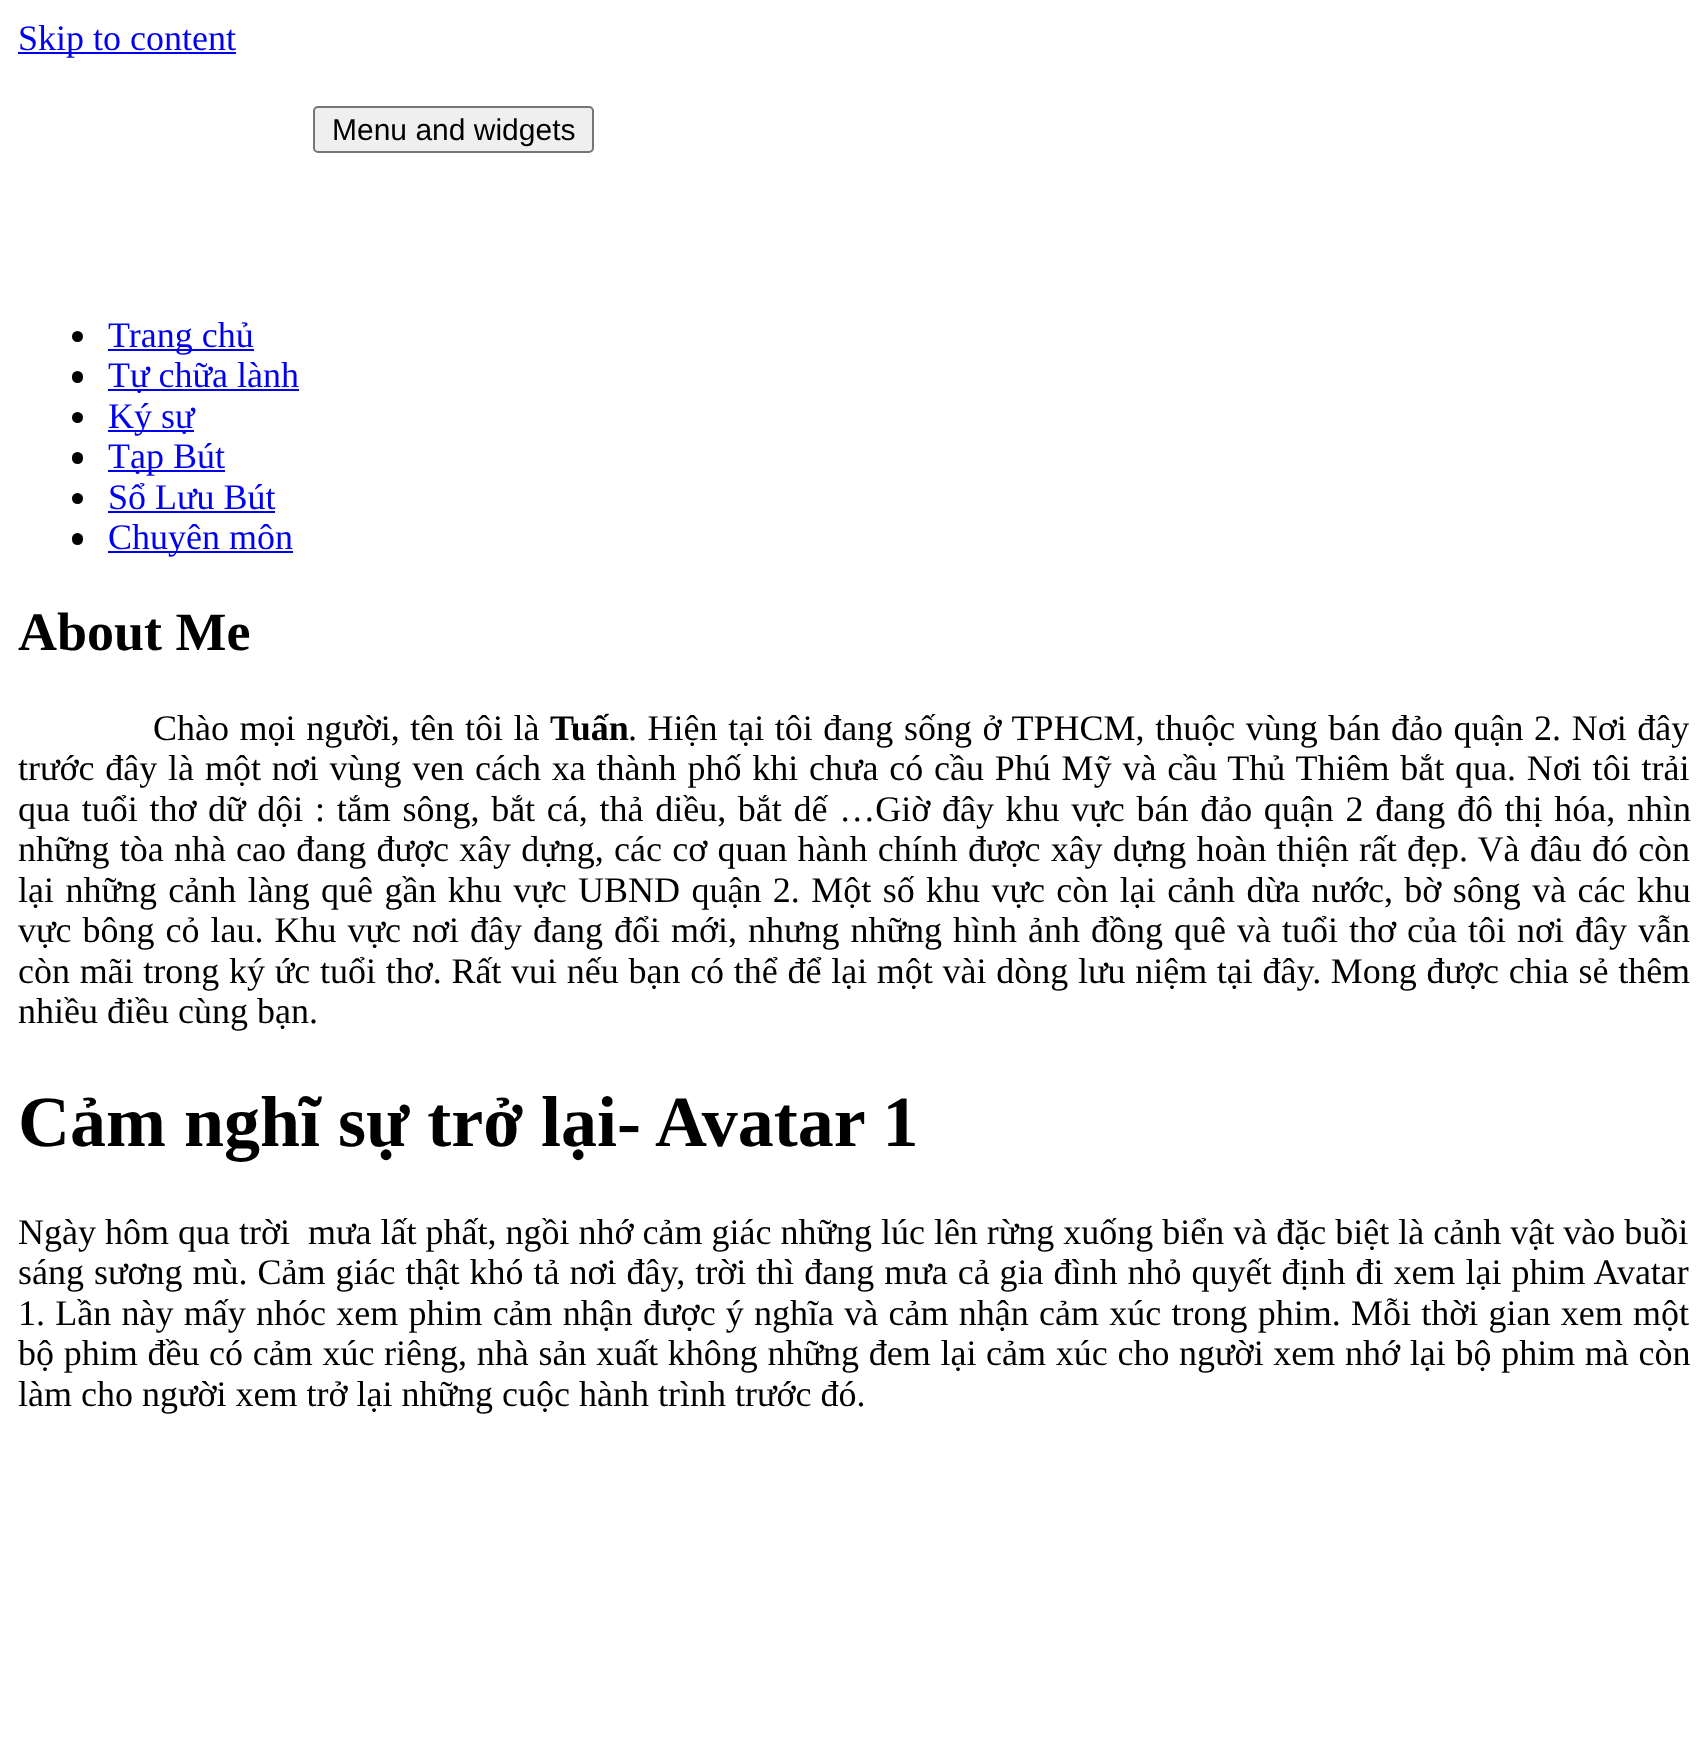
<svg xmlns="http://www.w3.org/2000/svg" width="1707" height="1751">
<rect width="100%" height="100%" fill="#fff"/>
<rect x="18" y="52" width="218" height="2" fill="#00e"/>
<text x="18" y="50" style="font-family:Liberation Serif;font-size:36px;fill:#00e">Skip to content</text>
<rect x="314" y="107" width="279" height="45" rx="4" fill="#efefef" stroke="#767676" stroke-width="2"/>
<text x="332" y="140" style="font-family:Liberation Sans;font-size:30px;fill:#000">Menu and widgets</text>
<circle cx="77.5" cy="336.5" r="5.5" fill="#000"/>
<rect x="108" y="349" width="146" height="2" fill="#00e"/>
<text x="108" y="347" style="font-family:Liberation Serif;font-size:36px;fill:#00e">Trang chủ</text>
<rect x="72" y="371" width="11" height="12" rx="5.5" fill="#000"/>
<rect x="108" y="389" width="191" height="2" fill="#00e"/>
<text x="108" y="387" style="font-family:Liberation Serif;font-size:36px;fill:#00e">Tự chữa lành</text>
<circle cx="77.5" cy="417.5" r="5.5" fill="#000"/>
<rect x="108" y="430" width="86" height="2" fill="#00e"/>
<text x="108" y="428" style="font-family:Liberation Serif;font-size:36px;fill:#00e">Ký sự</text>
<rect x="72" y="452" width="11" height="12" rx="5.5" fill="#000"/>
<rect x="108" y="470" width="117" height="2" fill="#00e"/>
<text x="108" y="468" style="font-family:Liberation Serif;font-size:36px;fill:#00e">Tạp Bút</text>
<circle cx="77.5" cy="498.5" r="5.5" fill="#000"/>
<text x="108" y="509" style="font-family:Liberation Serif;font-size:36px;fill:#00e">Sổ Lưu Bút</text>
<rect x="108" y="511" width="167" height="2" fill="#00e"/>
<rect x="72" y="533" width="11" height="12" rx="5.5" fill="#000"/>
<rect x="108" y="551" width="185" height="2" fill="#00e"/>
<text x="108" y="549" style="font-family:Liberation Serif;font-size:36px;fill:#00e">Chuyên môn</text>
<text x="18" y="650" style="font-family:Liberation Serif;font-size:54px;font-weight:bold;fill:#000">About Me</text>
<text x="153" y="740" word-spacing="1.6" style="font-family:Liberation Serif;font-size:36px;fill:#000">Chào mọi người, tên tôi là</text>
<text x="550" y="740" style="font-family:Liberation Serif;font-size:36px;font-weight:bold;fill:#000">Tuấn</text>
<text x="628" y="740" word-spacing="1.6" style="font-family:Liberation Serif;font-size:36px;fill:#000">. Hiện tại tôi đang sống ở TPHCM, thuộc vùng bán đảo quận 2. Nơi đây</text>
<text x="18" y="780" word-spacing="1.8" style="font-family:Liberation Serif;font-size:36px;fill:#000">trước đây là một nơi vùng ven cách xa thành phố khi chưa có cầu Phú Mỹ và cầu Thủ Thiêm bắt qua. Nơi tôi trải</text>
<text x="18" y="821" word-spacing="2.7" style="font-family:Liberation Serif;font-size:36px;fill:#000">qua tuổi thơ dữ dội : tắm sông, bắt cá, thả diều, bắt dế …Giờ đây khu vực bán đảo quận 2 đang đô thị hóa, nhìn</text>
<text x="18" y="861" word-spacing="1.2" style="font-family:Liberation Serif;font-size:36px;fill:#000">những tòa nhà cao đang được xây dựng, các cơ quan hành chính được xây dựng hoàn thiện rất đẹp. Và đâu đó còn</text>
<text x="18" y="902" word-spacing="2.4" style="font-family:Liberation Serif;font-size:36px;fill:#000">lại những cảnh làng quê gần khu vực UBND quận 2. Một số khu vực còn lại cảnh dừa nước, bờ sông và các khu</text>
<text x="18" y="942" word-spacing="2" style="font-family:Liberation Serif;font-size:36px;fill:#000">vực bông cỏ lau. Khu vực nơi đây đang đổi mới, nhưng những hình ảnh đồng quê và tuổi thơ</text>
<text x="1407" y="942" word-spacing="2" style="font-family:Liberation Serif;font-size:36px;fill:#000">của tôi nơi đây vẫn</text>
<text x="18" y="983" word-spacing="0.7" style="font-family:Liberation Serif;font-size:36px;fill:#000">còn mãi trong ký ức tuổi thơ. Rất vui nếu bạn có thể để lại một vài dòng lưu niệm tại đây. Mong được chia sẻ thêm</text>
<text x="18" y="1023" style="font-family:Liberation Serif;font-size:36px;fill:#000">nhiều điều cùng bạn.</text>
<text x="18" y="1146" style="font-family:Liberation Serif;font-size:72px;font-weight:bold;fill:#000">Cảm nghĩ sự trở lại- Avatar 1</text>
<text x="18" y="1244" style="font-family:Liberation Serif;font-size:36px;fill:#000" xml:space="preserve">Ngày hôm qua trời  mưa lất phất, ngồi nhớ cảm giác những lúc lên rừng xuống biển và đặc biệt là cảnh vật vào buồi</text>
<text x="18" y="1284" word-spacing="1" style="font-family:Liberation Serif;font-size:36px;fill:#000">sáng sương mù. Cảm giác thật khó tả nơi đây, trời thì đang mưa cả gia đình nhỏ quyết định đi xem lại phim Avatar</text>
<text x="18" y="1325" word-spacing="1.25" style="font-family:Liberation Serif;font-size:36px;fill:#000">1. Lần này mấy nhóc xem phim cảm nhận được ý nghĩa và cảm nhận cảm xúc trong phim. Mỗi thời gian xem một</text>
<text x="18" y="1365" word-spacing="0.7" style="font-family:Liberation Serif;font-size:36px;fill:#000">bộ phim đều có cảm xúc riêng, nhà sản xuất không những đem lại cảm xúc cho người xem nhớ lại bộ phim mà còn</text>
<text x="18" y="1406" style="font-family:Liberation Serif;font-size:36px;fill:#000">làm cho người xem trở lại những cuộc hành trình trước đó.</text>
</svg>
